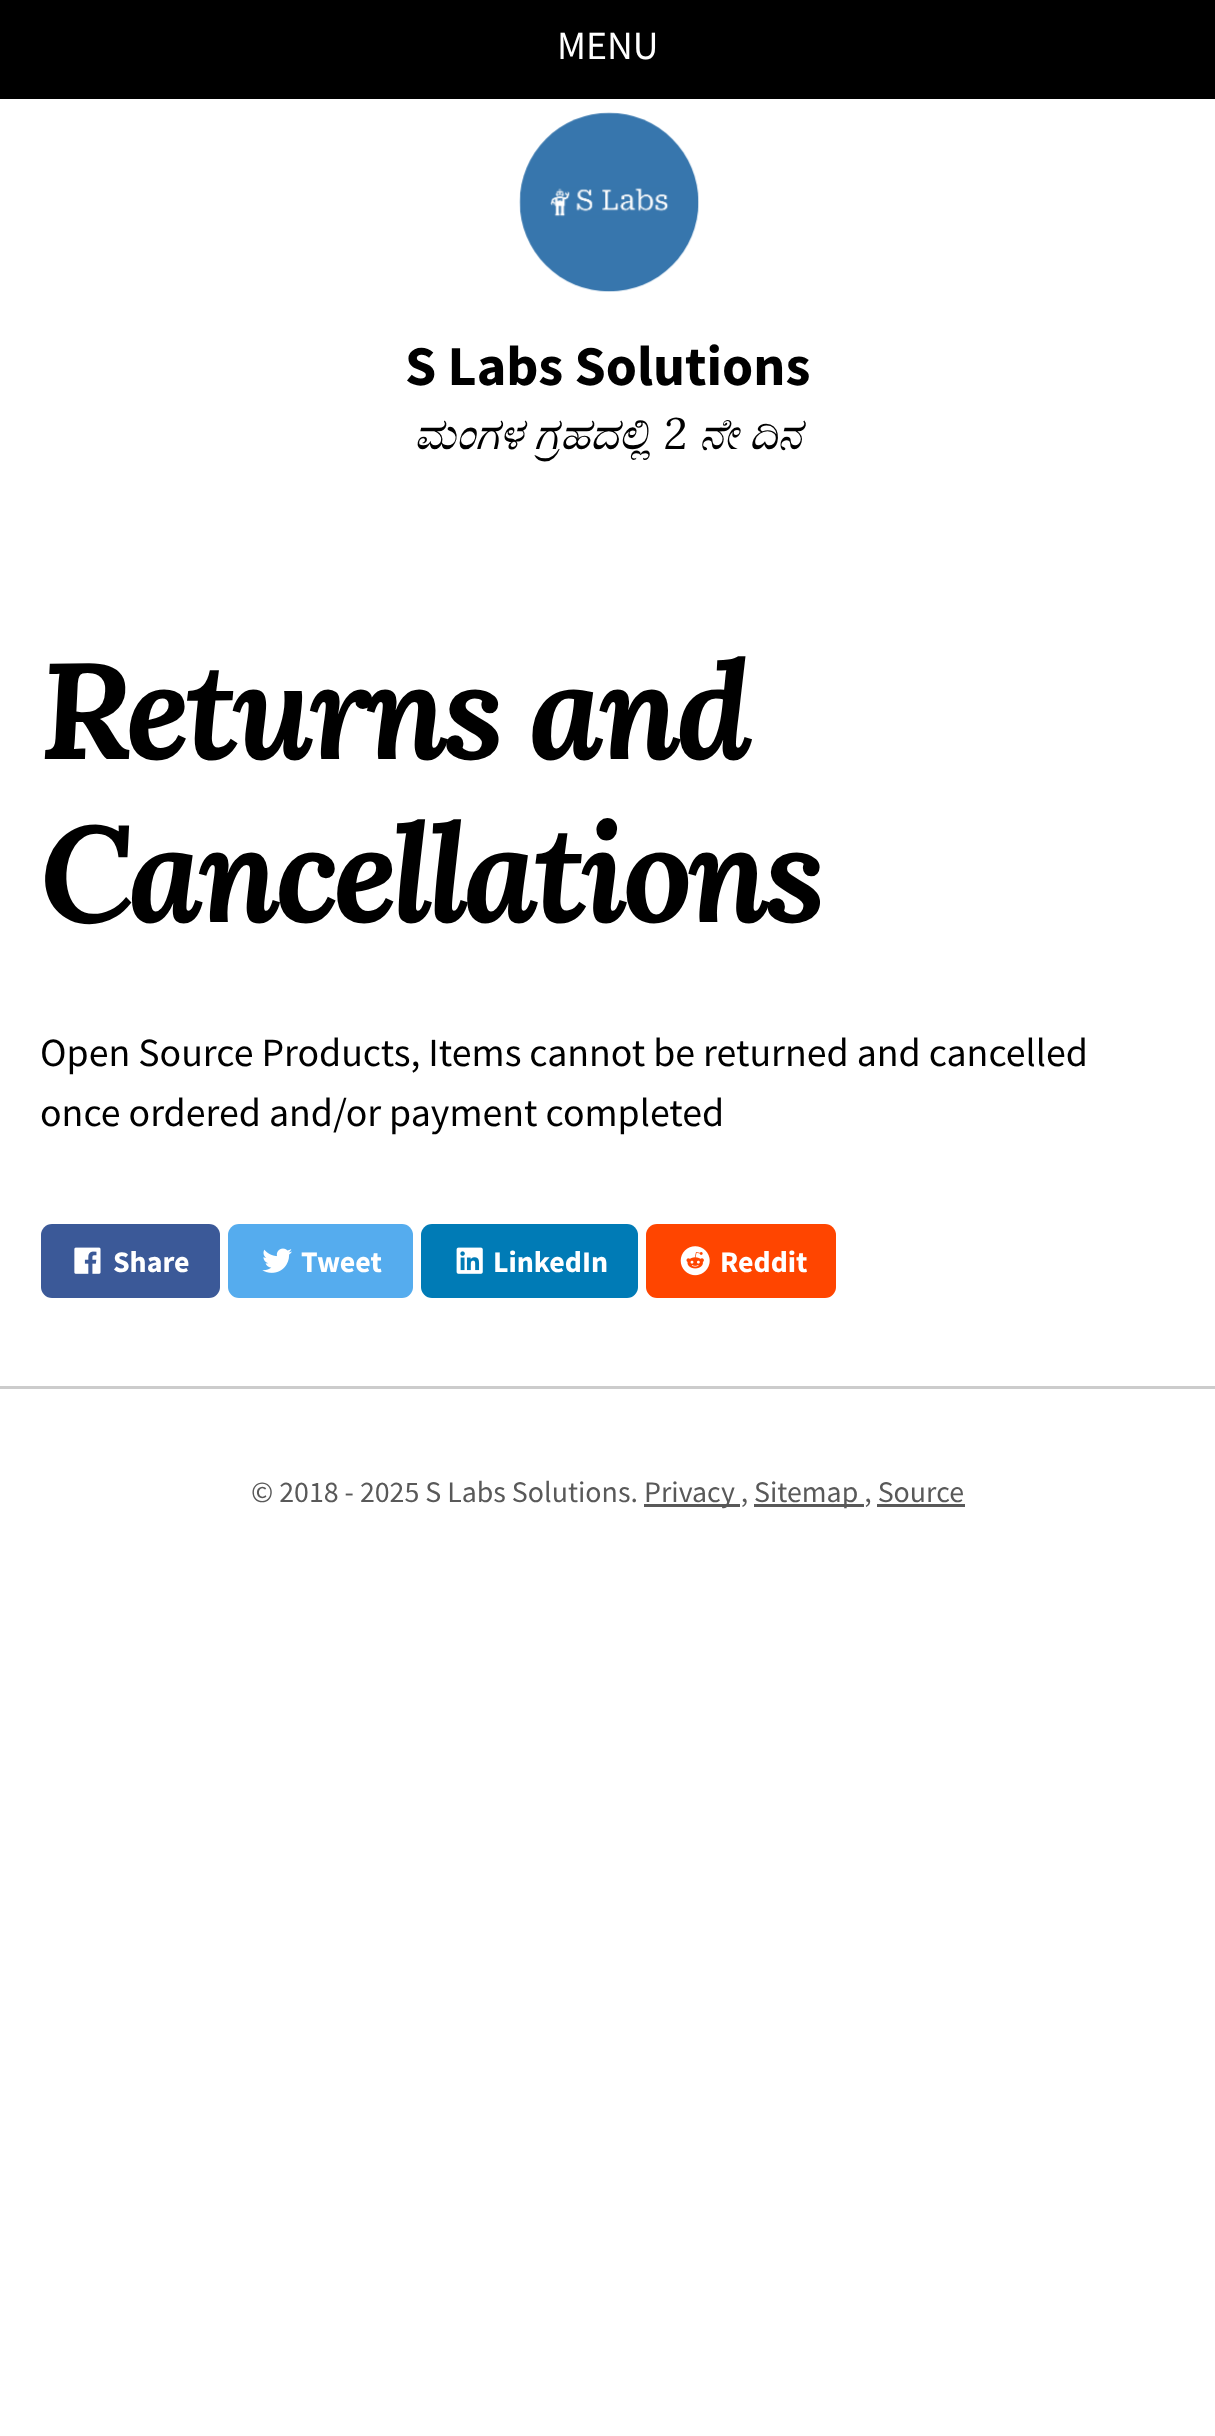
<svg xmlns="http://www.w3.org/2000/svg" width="1215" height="2436">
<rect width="100%" height="100%" fill="#fff"/>
<rect width="1215" height="99" fill="#000"/>
<text x="557" y="59" style="font-family:Source Sans Pro;font-size:39.9px;fill:#fff">MENU</text>
<image x="519" y="112" width="180" height="180" href="media/1.png"/>
<text x="405" y="385" style="font-family:Source Sans Pro;font-size:56.25px;font-weight:bold;fill:#000">S Labs Solutions</text>
<text x="414" y="449" style="font-family:FreeSerif;font-size:44px;font-style:italic;fill:#000">ಮಂಗಳ ಗ್ರಹದಲ್ಲಿ</text>
<text x="664" y="449" style="font-family:Lora;font-size:44px;font-style:italic;fill:#000">2</text>
<text x="699" y="449" style="font-family:FreeSerif;font-size:44px;font-style:italic;fill:#000">ನೇ ದಿನ</text>
<text x="40" y="759" style="font-family:Lora;font-size:136.25px;font-weight:bold;font-style:italic;letter-spacing:-5.5px;fill:#000">Returns and</text>
<text x="40" y="922" style="font-family:Lora;font-size:136.25px;font-weight:bold;font-style:italic;letter-spacing:-5.5px;fill:#000">Cancellations</text>
<text x="40" y="1066" style="font-family:Source Sans Pro;font-size:39.9px;fill:#000">Open Source Products, Items cannot be returned and cancelled</text>
<text x="40" y="1126" style="font-family:Source Sans Pro;font-size:39.9px;fill:#000">once ordered and/or payment completed</text>
<rect x="41" y="1224" width="179" height="74" rx="11" fill="#3b5998"/>
<image x="74" y="1247" width="27" height="27" href="media/2.png"/>
<text x="113" y="1272" style="font-family:Source Sans Pro;font-size:29.9px;font-weight:bold;fill:#fff">Share</text>
<rect x="228" y="1224" width="185" height="74" rx="11" fill="#55acee"/>
<image x="262" y="1248" width="30" height="25" href="media/3.png"/>
<text x="301" y="1272" style="font-family:Source Sans Pro;font-size:29.9px;font-weight:bold;fill:#fff">Tweet</text>
<rect x="421" y="1224" width="217" height="74" rx="11" fill="#007bb6"/>
<image x="456" y="1247" width="27" height="27" href="media/4.png"/>
<text x="493" y="1272" style="font-family:Source Sans Pro;font-size:29.9px;font-weight:bold;fill:#fff">LinkedIn</text>
<rect x="646" y="1224" width="190" height="74" rx="11" fill="#ff4500"/>
<image x="680" y="1246" width="30" height="30" href="media/5.png"/>
<text x="720" y="1272" style="font-family:Source Sans Pro;font-size:29.9px;font-weight:bold;fill:#fff">Reddit</text>
<rect y="1386" width="1215" height="3" fill="#ccc"/>
<text x="251" y="1502" style="font-family:Source Sans Pro;font-size:29.9px;fill:#595959">© 2018 - 2025 S Labs Solutions.</text>
<rect x="644" y="1504" width="96" height="3" fill="#595959"/>
<text x="644" y="1502" style="font-family:Source Sans Pro;font-size:29.9px;fill:#595959">Privacy ,</text>
<rect x="754" y="1504" width="110" height="3" fill="#595959"/>
<text x="754" y="1502" style="font-family:Source Sans Pro;font-size:29.9px;fill:#595959">Sitemap , Source</text>
<rect x="877" y="1504" width="88" height="3" fill="#595959"/>
</svg>
